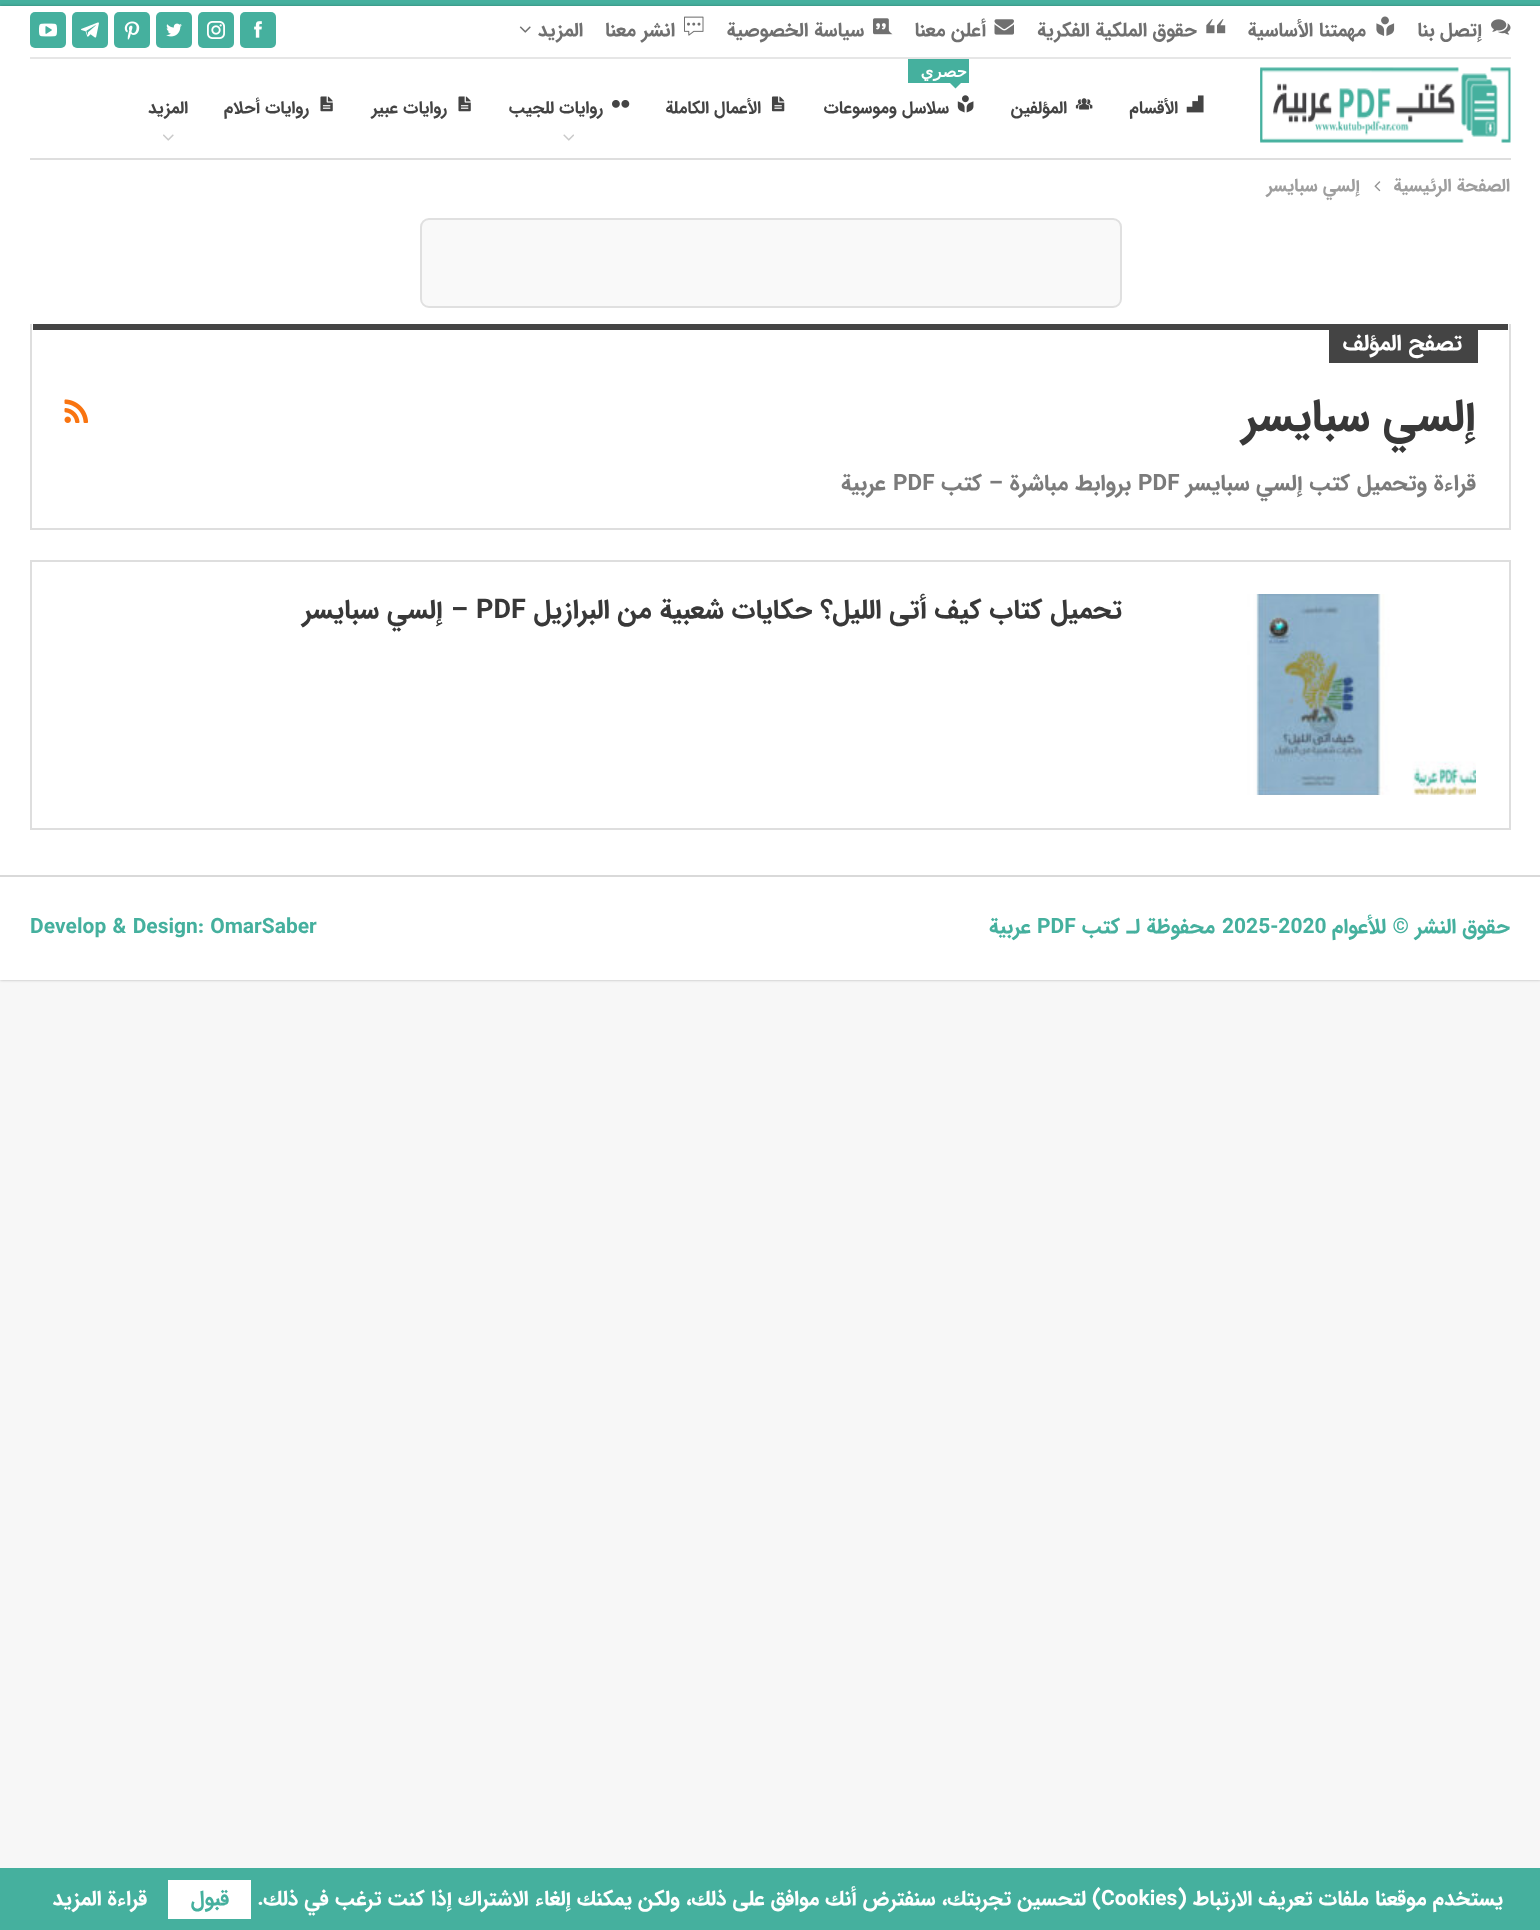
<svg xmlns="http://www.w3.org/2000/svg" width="1540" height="1930">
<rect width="100%" height="100%" fill="#f7f7f7"/>
<rect width="1540" height="6" fill="#45b09e"/>
<rect y="6" width="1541" height="974" fill="#00000045" filter="blur(1.5px)"/>
<rect y="6" width="1540" height="974" fill="#fff"/>
<rect x="30" y="57" width="1481" height="2" fill="#e6e6e6"/>
<image x="1491" y="19" width="20" height="16" href="media/1.png"/>
<text x="1482" y="36" style="font-family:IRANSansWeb;font-size:19.5px;font-weight:bold;direction:rtl;fill:#707070">إتصل بنا</text>
<image x="1376" y="16" width="19" height="20" href="media/2.png"/>
<text x="1366" y="36" style="font-family:IRANSansWeb;font-size:19.5px;font-weight:bold;direction:rtl;fill:#707070">مهمتنا الأساسية</text>
<image x="1206" y="19" width="20" height="15" href="media/3.png"/>
<text x="1197" y="36" style="font-family:IRANSansWeb;font-size:19.5px;font-weight:bold;direction:rtl;fill:#707070">حقوق الملكية الفكرية</text>
<image x="994" y="19" width="20" height="16" href="media/4.png"/>
<text x="986" y="36" style="font-family:IRANSansWeb;font-size:19.5px;font-weight:bold;direction:rtl;fill:#707070">أعلن معنا</text>
<image x="873" y="18" width="20" height="17" href="media/5.png"/>
<text x="864" y="36" style="font-family:IRANSansWeb;font-size:19.5px;font-weight:bold;direction:rtl;fill:#707070">سياسة الخصوصية</text>
<image x="684" y="16" width="20" height="20" href="media/6.png"/>
<text x="675" y="36" style="font-family:IRANSansWeb;font-size:19.5px;font-weight:bold;direction:rtl;fill:#707070">انشر معنا</text>
<text x="583" y="36" style="font-family:IRANSansWeb;font-size:19.5px;font-weight:bold;direction:rtl;fill:#707070">المزيد</text>
<image x="519" y="26" width="12" height="7" href="media/7.png"/>
<rect x="240" y="12" width="36" height="36" rx="5" fill="#45b09e"/>
<image x="254" y="21" width="8" height="17" href="media/8.png"/>
<rect x="198" y="12" width="36" height="36" rx="5" fill="#45b09e"/>
<image x="207" y="21" width="18" height="18" href="media/9.png"/>
<rect x="156" y="12" width="36" height="36" rx="5" fill="#45b09e"/>
<image x="166" y="23" width="16" height="14" href="media/10.png"/>
<rect x="114" y="12" width="36" height="36" rx="5" fill="#45b09e"/>
<image x="124" y="21" width="16" height="19" href="media/11.png"/>
<rect x="72" y="12" width="36" height="36" rx="5" fill="#45b09e"/>
<image x="81" y="22" width="18" height="16" href="media/12.png"/>
<rect x="30" y="12" width="36" height="36" rx="5" fill="#45b09e"/>
<image x="39" y="23" width="18" height="14" href="media/13.png"/>
<rect x="30" y="158" width="1481" height="2" fill="#dedede"/>
<image x="1260" y="67" width="251" height="76" href="media/14.png"/>
<image x="1186" y="95" width="18" height="18" href="media/15.png"/>
<text x="1178" y="113" style="font-family:IRANSansWeb;font-size:17.25px;font-weight:bold;direction:rtl;fill:#444">الأقسام</text>
<image x="1075" y="98" width="18" height="12" href="media/16.png"/>
<text x="1067" y="113" style="font-family:IRANSansWeb;font-size:17.25px;font-weight:bold;direction:rtl;fill:#444">المؤلفين</text>
<rect x="908" y="59" width="61" height="24" fill="#45b09e"/>
<text x="967" y="77" style="font-family:DejaVu Sans;font-size:16.5px;font-weight:bold;letter-spacing:1.5px;direction:rtl;fill:#fff">حصري</text>
<path d="M949.5 82.5h12l-6 6z" fill="#45b09e"/>
<image x="957" y="95" width="17" height="18" href="media/17.png"/>
<text x="949" y="113" style="font-family:IRANSansWeb;font-size:17.25px;font-weight:bold;direction:rtl;fill:#444">سلاسل وموسوعات</text>
<image x="771" y="96" width="14" height="16" href="media/18.png"/>
<text x="761" y="113" style="font-family:IRANSansWeb;font-size:17.25px;font-weight:bold;direction:rtl;fill:#444">الأعمال الكاملة</text>
<image x="612" y="100" width="18" height="8" href="media/19.png"/>
<text x="603" y="113" style="font-family:IRANSansWeb;font-size:17.25px;font-weight:bold;direction:rtl;fill:#444">روايات للجيب</text>
<image x="563" y="134" width="11" height="7" href="media/20.png"/>
<image x="458" y="96" width="13" height="16" href="media/21.png"/>
<text x="447" y="113" style="font-family:IRANSansWeb;font-size:17.25px;font-weight:bold;direction:rtl;fill:#444">روايات عبير</text>
<image x="320" y="96" width="13" height="16" href="media/21.png"/>
<text x="309" y="113" style="font-family:IRANSansWeb;font-size:17.25px;font-weight:bold;direction:rtl;fill:#444">روايات أحلام</text>
<text x="188" y="113" style="font-family:IRANSansWeb;font-size:17.25px;font-weight:bold;direction:rtl;fill:#444">المزيد</text>
<image x="163" y="134" width="11" height="7" href="media/22.png"/>
<text x="1510" y="191" style="font-family:IRANSansWeb;font-size:18px;font-weight:bold;direction:rtl;fill:#9e9e9e">الصفحة الرئيسية</text>
<image x="1374" y="181" width="7" height="11" href="media/23.png"/>
<text x="1360" y="191" style="font-family:IRANSansWeb;font-size:18px;font-weight:bold;direction:rtl;fill:#9e9e9e">إلسي سبايسر</text>
<rect x="421" y="219" width="700" height="88" rx="8" fill="#f9f9f9" stroke="#e0e0e0" stroke-width="2"/>
<rect x="1509" y="324" width="2" height="206" fill="#dedede"/>
<rect x="30" y="528" width="1481" height="2" fill="#dedede"/>
<rect x="30" y="324" width="2" height="206" fill="#dedede"/>
<rect x="33" y="324" width="1475" height="6" fill="#444"/>
<rect x="1329" y="330" width="149" height="33" fill="#444"/>
<text x="1462" y="350" style="font-family:IRANSansWeb;font-size:22.5px;font-weight:bold;direction:rtl;fill:#fff">تصفح المؤلف</text>
<text x="1476" y="430" style="font-family:IRANSansWeb;font-size:45px;font-weight:bold;direction:rtl;fill:#383838">إلسي سبايسر</text>
<image x="64" y="399" width="25" height="24" href="media/24.png"/>
<text x="1476" y="490" style="font-family:IRANSansWeb;font-size:22.5px;font-weight:bold;direction:rtl;fill:#7b7b7b">قراءة وتحميل كتب إلسي سبايسر</text>
<text x="1138" y="490" style="font-family:IRANSansWeb;font-size:22.5px;font-weight:bold;fill:#7b7b7b">PDF</text>
<text x="1131" y="490" style="font-family:IRANSansWeb;font-size:22.5px;font-weight:bold;direction:rtl;fill:#7b7b7b">بروابط مباشرة – كتب</text>
<text x="893" y="490" style="font-family:IRANSansWeb;font-size:22.5px;font-weight:bold;fill:#7b7b7b">PDF</text>
<text x="886" y="490" style="font-family:IRANSansWeb;font-size:22.5px;font-weight:bold;direction:rtl;fill:#7b7b7b">عربية</text>
<rect x="31" y="561" width="1479" height="268" fill="none" stroke="#dedede" stroke-width="2"/>
<image x="1161" y="594" width="315" height="201" href="media/25.png"/>
<text x="1122" y="618" style="font-family:IRANSansWeb;font-size:27px;font-weight:bold;direction:rtl;fill:#383838">تحميل كتاب كيف أتى الليل؟ حكايات شعبية من البرازيل</text>
<text x="476" y="618" style="font-family:IRANSansWeb;font-size:27px;font-weight:bold;fill:#383838">PDF</text>
<text x="468" y="618" style="font-family:IRANSansWeb;font-size:27px;font-weight:bold;direction:rtl;fill:#383838">– إلسي سبايسر</text>
<rect y="875" width="1540" height="2" fill="#d9d9d9"/>
<text x="1510" y="933" style="font-family:IRANSansWeb;font-size:21px;font-weight:bold;direction:rtl;fill:#45b09e">حقوق النشر © للأعوام</text>
<text x="1222" y="933" style="font-family:IRANSansWeb;font-size:21px;font-weight:bold;fill:#45b09e">2025-2020</text>
<text x="1215" y="933" style="font-family:IRANSansWeb;font-size:21px;font-weight:bold;direction:rtl;fill:#45b09e">محفوظة لـ</text>
<text x="1120" y="933" style="font-family:IRANSansWeb;font-size:21px;font-weight:bold;direction:rtl;fill:#45b09e">كتب</text>
<text x="1037" y="933" style="font-family:IRANSansWeb;font-size:21px;font-weight:bold;fill:#45b09e">PDF</text>
<text x="1031" y="933" style="font-family:IRANSansWeb;font-size:21px;font-weight:bold;direction:rtl;fill:#45b09e">عربية</text>
<text x="30" y="933" style="font-family:IRANSansWeb;font-size:21px;font-weight:bold;fill:#45b09e">Develop &amp; Design: OmarSaber</text>
<rect y="1868" width="1540" height="62" fill="#45b09e"/>
<text x="1503" y="1905" style="font-family:IRANSansWeb;font-size:21px;font-weight:bold;direction:rtl;fill:#fff">يستخدم موقعنا ملفات تعريف الارتباط (</text>
<text x="1101" y="1905" style="font-family:IRANSansWeb;font-size:21px;font-weight:bold;fill:#fff">Cookies</text>
<text x="1101" y="1905" style="font-family:IRANSansWeb;font-size:21px;font-weight:bold;direction:rtl;fill:#fff">) لتحسين تجربتك، سنفترض أنك موافق على ذلك، ولكن يمكنك إلغاء الاشتراك إذا كنت ترغب في ذلك.</text>
<rect x="168" y="1880" width="83" height="39" fill="#fff"/>
<text x="229" y="1905" style="font-family:IRANSansWeb;font-size:21px;font-weight:bold;direction:rtl;fill:#45b09e">قبول</text>
<text x="147" y="1905" style="font-family:IRANSansWeb;font-size:21px;font-weight:bold;direction:rtl;fill:#fff">قراءة المزيد</text>
</svg>
